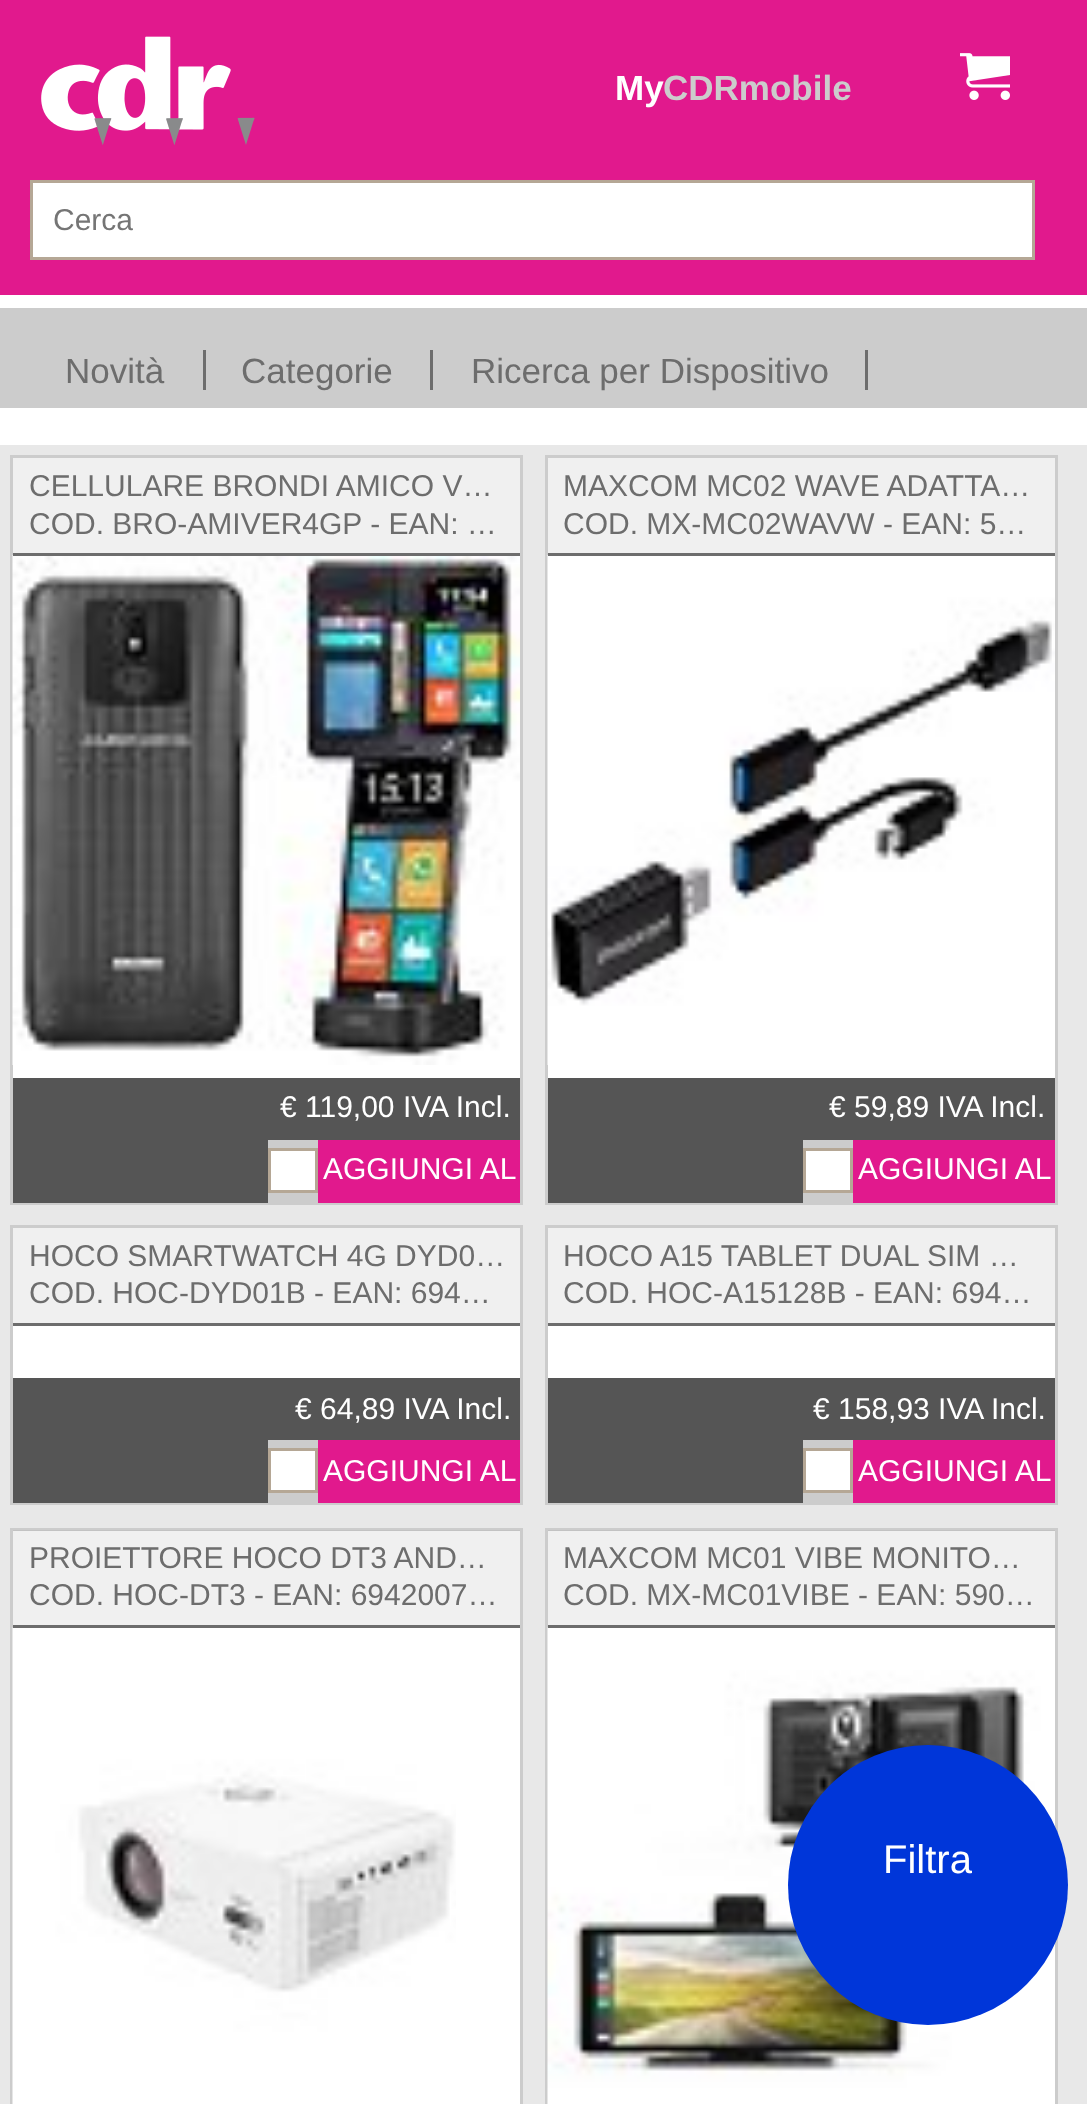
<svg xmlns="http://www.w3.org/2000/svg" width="1087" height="2104">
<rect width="100%" height="100%" fill="#fff"/>
<rect width="1087" height="295" fill="#e1198d"/>
<image x="41" y="36" width="214" height="109" href="media/1.png"/>
<text x="615" y="100" style="font-family:Liberation Sans;font-size:35px;font-weight:bold;fill:#fff">My</text>
<text x="663" y="100" style="font-family:Liberation Sans;font-size:35px;font-weight:bold;fill:#ccc">CDRmobile</text>
<image x="960" y="53" width="50" height="47" href="media/2.png"/>
<rect x="31.5" y="181.5" width="1002" height="77" fill="#fff" stroke="#b5a795" stroke-width="3"/>
<text x="53" y="230" style="font-family:Liberation Sans;font-size:30px;fill:#757575">Cerca</text>
<rect y="308" width="1087" height="100" fill="#ccc"/>
<text x="65" y="383" style="font-family:Liberation Sans;font-size:35px;fill:#6d6d6d">Novità</text>
<rect x="203" y="350" width="3" height="40" fill="#6d6d6d"/>
<text x="241" y="383" style="font-family:Liberation Sans;font-size:35px;fill:#6d6d6d">Categorie</text>
<rect x="430" y="350" width="3" height="40" fill="#6d6d6d"/>
<text x="471" y="383" style="font-family:Liberation Sans;font-size:35px;fill:#6d6d6d">Ricerca per Dispositivo</text>
<rect x="865" y="350" width="3" height="40" fill="#6d6d6d"/>
<rect y="445" width="1087" height="1659" fill="#e8e8e8"/>
<rect x="13" y="1065" width="507" height="13" fill="#fff"/>
<rect x="11.5" y="456.5" width="510" height="747" fill="none" stroke="#ccc" stroke-width="3"/>
<rect x="13" y="458" width="507" height="95" fill="#f0f0f0"/>
<image x="12" y="555" width="508" height="510" href="media/3.png"/>
<rect x="13" y="553" width="507" height="3" fill="#6d6d6d"/>
<text x="29" y="496" style="font-family:Liberation Sans;font-size:30px;fill:#6d6d6d">CELLULARE BRONDI AMICO V…</text>
<text x="29" y="534" style="font-family:Liberation Sans;font-size:30px;fill:#6d6d6d">COD. BRO-AMIVER4GP - EAN: …</text>
<rect x="13" y="1078" width="507" height="62" fill="#555"/>
<text x="280" y="1117" style="font-family:Liberation Sans;font-size:30px;fill:#fff">€ 119,00 IVA Incl.</text>
<rect x="13" y="1140" width="255" height="63" fill="#555"/>
<rect x="268" y="1140" width="50" height="62" fill="#ccc"/>
<rect x="269.5" y="1149.5" width="47" height="42" fill="#fff" stroke="#b5a795" stroke-width="3"/>
<rect x="318" y="1140" width="202" height="63" fill="#e1198d"/>
<text x="323" y="1179" style="font-family:Liberation Sans;font-size:30px;fill:#fff">AGGIUNGI AL</text>
<rect x="548" y="1065" width="507" height="13" fill="#fff"/>
<rect x="546.5" y="456.5" width="510" height="747" fill="none" stroke="#ccc" stroke-width="3"/>
<rect x="548" y="458" width="507" height="95" fill="#f0f0f0"/>
<image x="547" y="555" width="508" height="510" href="media/4.png"/>
<rect x="548" y="553" width="507" height="3" fill="#6d6d6d"/>
<text x="563" y="496" style="font-family:Liberation Sans;font-size:30px;fill:#6d6d6d">MAXCOM MC02 WAVE ADATTA…</text>
<text x="563" y="534" style="font-family:Liberation Sans;font-size:30px;fill:#6d6d6d">COD. MX-MC02WAVW - EAN: 5…</text>
<rect x="548" y="1078" width="507" height="62" fill="#555"/>
<text x="829" y="1117" style="font-family:Liberation Sans;font-size:30px;fill:#fff">€ 59,89 IVA Incl.</text>
<rect x="548" y="1140" width="255" height="63" fill="#555"/>
<rect x="803" y="1140" width="50" height="62" fill="#ccc"/>
<rect x="804.5" y="1149.5" width="47" height="42" fill="#fff" stroke="#b5a795" stroke-width="3"/>
<rect x="853" y="1140" width="202" height="63" fill="#e1198d"/>
<text x="858" y="1179" style="font-family:Liberation Sans;font-size:30px;fill:#fff">AGGIUNGI AL</text>
<rect x="13" y="1326" width="507" height="52" fill="#fff"/>
<rect x="11.5" y="1226.5" width="510" height="277" fill="none" stroke="#ccc" stroke-width="3"/>
<rect x="13" y="1228" width="507" height="95" fill="#f0f0f0"/>
<rect x="13" y="1323" width="507" height="3" fill="#6d6d6d"/>
<text x="29" y="1266" style="font-family:Liberation Sans;font-size:30px;fill:#6d6d6d">HOCO SMARTWATCH 4G DYD0…</text>
<text x="29" y="1303" style="font-family:Liberation Sans;font-size:30px;fill:#6d6d6d">COD. HOC-DYD01B - EAN: 694…</text>
<rect x="13" y="1378" width="507" height="62" fill="#555"/>
<text x="295" y="1419" style="font-family:Liberation Sans;font-size:30px;fill:#fff">€ 64,89 IVA Incl.</text>
<rect x="13" y="1440" width="255" height="63" fill="#555"/>
<rect x="268" y="1440" width="50" height="62" fill="#ccc"/>
<rect x="269.5" y="1449.5" width="47" height="42" fill="#fff" stroke="#b5a795" stroke-width="3"/>
<rect x="318" y="1440" width="202" height="63" fill="#e1198d"/>
<text x="323" y="1481" style="font-family:Liberation Sans;font-size:30px;fill:#fff">AGGIUNGI AL</text>
<rect x="548" y="1326" width="507" height="52" fill="#fff"/>
<rect x="546.5" y="1226.5" width="510" height="277" fill="none" stroke="#ccc" stroke-width="3"/>
<rect x="548" y="1228" width="507" height="95" fill="#f0f0f0"/>
<rect x="548" y="1323" width="507" height="3" fill="#6d6d6d"/>
<text x="563" y="1266" style="font-family:Liberation Sans;font-size:30px;fill:#6d6d6d">HOCO A15 TABLET DUAL SIM …</text>
<text x="563" y="1303" style="font-family:Liberation Sans;font-size:30px;fill:#6d6d6d">COD. HOC-A15128B - EAN: 694…</text>
<rect x="548" y="1378" width="507" height="62" fill="#555"/>
<text x="813" y="1419" style="font-family:Liberation Sans;font-size:30px;fill:#fff">€ 158,93 IVA Incl.</text>
<rect x="548" y="1440" width="255" height="63" fill="#555"/>
<rect x="803" y="1440" width="50" height="62" fill="#ccc"/>
<rect x="804.5" y="1449.5" width="47" height="42" fill="#fff" stroke="#b5a795" stroke-width="3"/>
<rect x="853" y="1440" width="202" height="63" fill="#e1198d"/>
<text x="858" y="1481" style="font-family:Liberation Sans;font-size:30px;fill:#fff">AGGIUNGI AL</text>
<rect x="11.5" y="1529.5" width="510" height="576" fill="#fff" stroke="#ccc" stroke-width="3"/>
<rect x="13" y="1530" width="507" height="95" fill="#6d6d6d1a"/>
<image x="12" y="1627" width="444" height="477" href="media/5.png"/>
<rect x="13" y="1625" width="507" height="3" fill="#6d6d6d"/>
<text x="29" y="1568" style="font-family:Liberation Sans;font-size:30px;fill:#6d6d6d">PROIETTORE HOCO DT3 AND…</text>
<text x="29" y="1605" style="font-family:Liberation Sans;font-size:30px;fill:#6d6d6d">COD. HOC-DT3 - EAN: 6942007…</text>
<rect x="546.5" y="1529.5" width="510" height="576" fill="#fff" stroke="#ccc" stroke-width="3"/>
<rect x="548" y="1530" width="507" height="95" fill="#6d6d6d1a"/>
<image x="547" y="1627" width="504" height="477" href="media/6.png"/>
<rect x="548" y="1625" width="507" height="3" fill="#6d6d6d"/>
<text x="563" y="1568" style="font-family:Liberation Sans;font-size:30px;fill:#6d6d6d">MAXCOM MC01 VIBE MONITO…</text>
<text x="563" y="1605" style="font-family:Liberation Sans;font-size:30px;fill:#6d6d6d">COD. MX-MC01VIBE - EAN: 590…</text>
<circle cx="928" cy="1885" r="140" fill="#0036d9"/>
<text x="883" y="1873" style="font-family:Liberation Sans;font-size:40px;fill:#fff">Filtra</text>
</svg>
